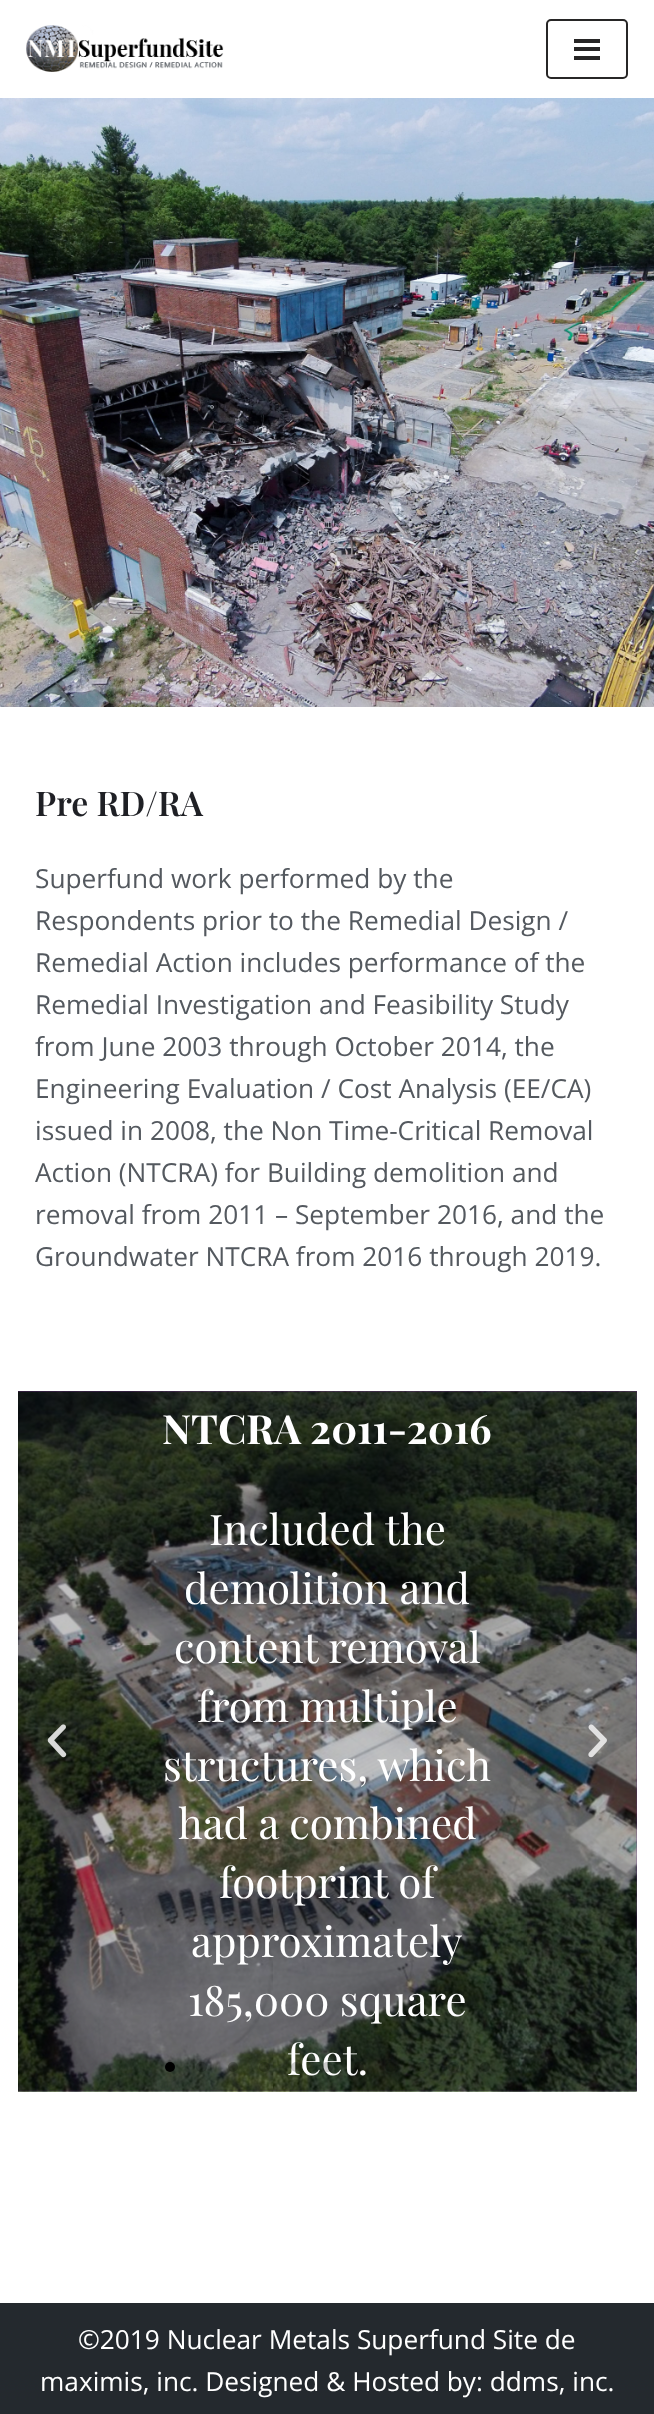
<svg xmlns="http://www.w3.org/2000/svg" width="654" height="2414">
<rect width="100%" height="100%" fill="#fff"/>
<image x="26" y="25" width="198" height="47" href="media/1.png"/>
<rect x="547" y="20" width="80" height="58" rx="4" fill="none" stroke="#272626" stroke-width="2"/>
<rect x="574" y="39" width="26" height="4" fill="#272626"/>
<rect x="574" y="47" width="26" height="4" fill="#272626"/>
<rect x="574" y="56" width="26" height="4" fill="#272626"/>
<image x="0" y="98" width="654" height="609" href="media/2.png"/>
<text x="35" y="816" style="font-family:Playfair Display;font-size:34px;font-weight:600;fill:#1f2025">Pre RD/RA</text>
<text x="35" y="888" style="font-family:Open Sans;font-size:26.25px;fill:#54595f">Superfund work performed by the</text>
<text x="35" y="930" style="font-family:Open Sans;font-size:26.25px;fill:#54595f">Respondents prior to the Remedial Design /</text>
<text x="35" y="972" style="font-family:Open Sans;font-size:26.25px;fill:#54595f">Remedial Action includes performance of the</text>
<text x="35" y="1014" style="font-family:Open Sans;font-size:26.25px;fill:#54595f">Remedial Investigation and Feasibility Study</text>
<text x="35" y="1056" style="font-family:Open Sans;font-size:26.25px;fill:#54595f">from June 2003 through October 2014, the</text>
<text x="35" y="1098" style="font-family:Open Sans;font-size:26.25px;fill:#54595f">Engineering Evaluation / Cost Analysis (EE/CA)</text>
<text x="35" y="1140" style="font-family:Open Sans;font-size:26.25px;fill:#54595f">issued in 2008, the Non Time-Critical Removal</text>
<text x="35" y="1182" style="font-family:Open Sans;font-size:26.25px;fill:#54595f">Action (NTCRA) for Building demolition and</text>
<text x="35" y="1224" style="font-family:Open Sans;font-size:26.25px;fill:#54595f">removal from 2011 – September 2016, and the</text>
<text x="35" y="1266" style="font-family:Open Sans;font-size:26.25px;fill:#54595f">Groundwater NTCRA from 2016 through 2019.</text>
<rect x="18" y="1391" width="619" height="700" fill="#642e7c"/>
<image x="18" y="1391" width="619" height="701" href="media/4.png"/>
<image x="47" y="1724" width="20" height="34" href="media/3.png"/>
<text x="162" y="1444" style="font-family:Playfair Display;font-size:40.25px;font-weight:bold;fill:#fff">NTCRA 2011-2016</text>
<text x="209" y="1545" style="font-family:Playfair Display;font-size:42px;fill:#fff">Included the</text>
<text x="184" y="1604" style="font-family:Playfair Display;font-size:42px;fill:#fff">demolition and</text>
<text x="174" y="1663" style="font-family:Playfair Display;font-size:42px;fill:#fff">content removal</text>
<text x="197" y="1722" style="font-family:Playfair Display;font-size:42px;fill:#fff">from multiple</text>
<text x="163" y="1781" style="font-family:Playfair Display;font-size:42px;fill:#fff">structures, which</text>
<text x="178" y="1839" style="font-family:Playfair Display;font-size:42px;fill:#fff">had a combined</text>
<text x="219" y="1898" style="font-family:Playfair Display;font-size:42px;fill:#fff">footprint of</text>
<text x="191" y="1957" style="font-family:Playfair Display;font-size:42px;fill:#fff">approximately</text>
<text x="188" y="2016" style="font-family:Playfair Display;font-size:42px;fill:#fff">185,000 square</text>
<text x="287" y="2075" style="font-family:Playfair Display;font-size:42px;fill:#fff">feet.</text>
<image x="588" y="1724" width="19" height="34" href="media/5.png"/>
<circle cx="170" cy="2067" r="5" fill="#000"/>
<rect x="196" y="2062" width="11" height="10" rx="5" fill="#00000033"/>
<circle cx="233" cy="2067" r="5" fill="#00000033"/>
<rect x="259" y="2062" width="11" height="10" rx="5" fill="#00000033"/>
<circle cx="296" cy="2067" r="5" fill="#00000033"/>
<rect x="322" y="2062" width="11" height="10" rx="5" fill="#00000033"/>
<circle cx="359" cy="2067" r="5" fill="#00000033"/>
<rect x="385" y="2062" width="11" height="10" rx="5" fill="#00000033"/>
<circle cx="422" cy="2067" r="5" fill="#00000033"/>
<rect x="448" y="2062" width="11" height="10" rx="5" fill="#00000033"/>
<circle cx="485" cy="2067" r="5" fill="#00000033"/>
<rect y="2303" width="654" height="111" fill="#24292e"/>
<text x="78" y="2349" style="font-family:Open Sans;font-size:26.25px;fill:#fff">©2019 Nuclear Metals Superfund Site de</text>
<text x="40" y="2391" style="font-family:Open Sans;font-size:26.25px;fill:#fff">maximis, inc. Designed &amp; Hosted by: ddms, inc.</text>
</svg>
